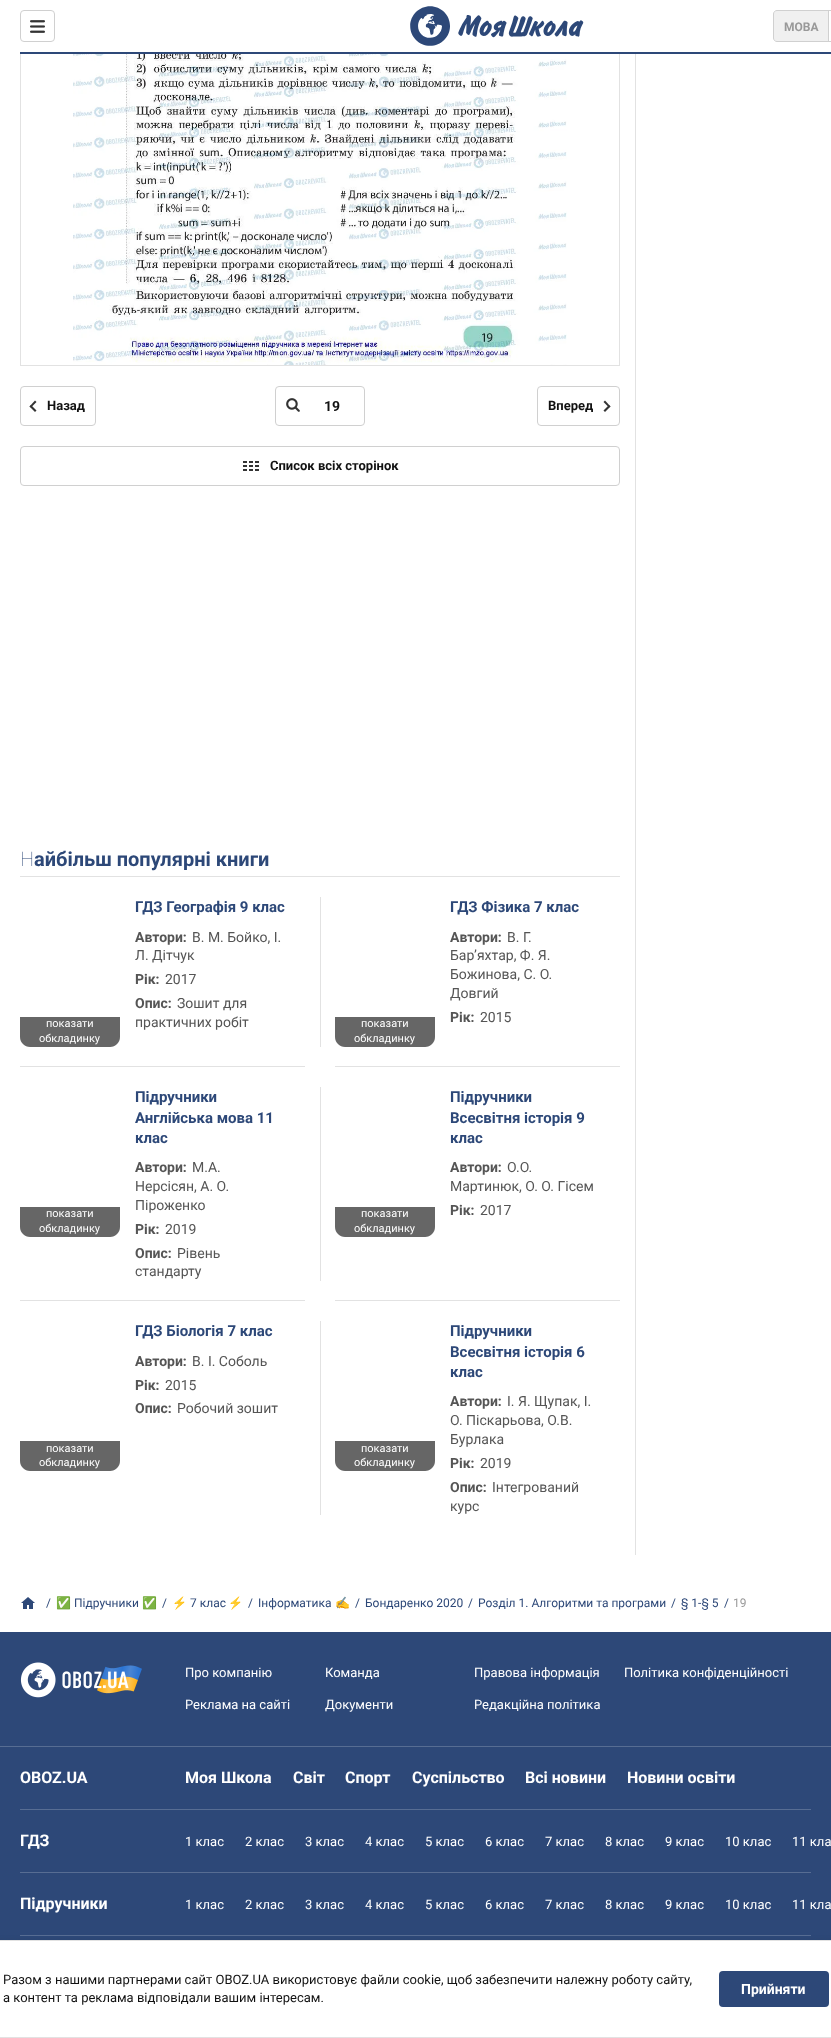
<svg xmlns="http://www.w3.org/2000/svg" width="831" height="2038">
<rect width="100%" height="100%" fill="#fff"/>
<rect x="20.5" y="-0.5" width="599" height="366" fill="none" stroke="#e2e2e2"/>
<rect x="20" width="600" height="54" fill="#fff"/>
<rect x="20" y="52" width="811" height="2" fill="#2d4878"/>
<rect x="20.5" y="10.5" width="34" height="31" rx="3.5" fill="none" stroke="#d0d0d0"/>
<image x="30" y="20" width="15" height="13" href="media/1.png"/>
<image x="410" y="6" width="174" height="40" href="media/2.png"/>
<path d="M777 10.5h51.5v31h-51.5c-2 0-3.5-1.5-3.5-3.5v-24c0-2 1.5-3.5 3.5-3.5z" fill="#f0f0f0" stroke="#d0d0d0"/>
<text x="784" y="31" style="font-family:Roboto;font-size:12px;font-weight:bold;fill:#999">МОВА</text>
<rect x="828.5" y="10.5" width="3" height="31" fill="none" stroke="#d0d0d0"/>
<image x="73" y="54" width="494" height="311" href="media/3.png"/>
<rect x="20.5" y="386.5" width="75" height="39" rx="3.5" fill="none" stroke="#d0d0d0"/>
<path d="M36.5 410.5l-1.5 1.5l-5.5-5.5l1.5-1.5z" fill="#333"/>
<path d="M36.5 402l-5.5 5.5l-1.5-1l5.5-6z" fill="#333"/>
<text x="47" y="410" style="font-family:Roboto;font-size:13px;font-weight:bold;fill:#121212">Назад</text>
<rect x="275.5" y="386.5" width="89" height="39" rx="3.5" fill="none" stroke="#d0d0d0"/>
<image x="286" y="398" width="14" height="14" href="media/4.png"/>
<text x="324" y="411" style="font-family:Roboto;font-size:14px;font-weight:bold;fill:#121212">19</text>
<rect x="537.5" y="386.5" width="82" height="39" rx="3.5" fill="none" stroke="#d0d0d0"/>
<text x="548" y="410" style="font-family:Roboto;font-size:13px;font-weight:bold;fill:#121212">Вперед</text>
<path d="M603.5 402l1.5-1.5l5.5 6l-1.5 1z" fill="#333"/>
<path d="M603.5 410.5l5.5-5.5l1.5 1.5l-5.5 5.5z" fill="#333"/>
<rect x="20.5" y="446.5" width="599" height="39" rx="3.5" fill="none" stroke="#d0d0d0"/>
<image x="243" y="461" width="16" height="10" href="media/5.png"/>
<text x="270" y="470" style="font-family:Roboto;font-size:13px;font-weight:bold;fill:#121212">Список всіх сторінок</text>
<rect x="20" y="876" width="600" height="1" fill="#e2e2e2"/>
<text x="20" y="866" style="font-family:Noto Sans;font-size:20px;font-weight:100;fill:#2d4878">Н</text>
<text x="34" y="866" style="font-family:Roboto;font-size:20px;font-weight:bold;fill:#2d4878">айбільш популярні книги</text>
<text x="135" y="912" style="font-family:Roboto;font-size:15px;font-weight:bold;fill:#2d4878">ГДЗ Географія 9 клас</text>
<text x="135" y="942" style="font-family:Roboto;font-size:14px;font-weight:bold;fill:#555">Автори:</text>
<text x="192" y="942" style="font-family:Roboto;font-size:14px;fill:#555">В. М. Бойко, І.</text>
<text x="135" y="960" style="font-family:Roboto;font-size:14px;fill:#555">Л. Дітчук</text>
<text x="135" y="984" style="font-family:Roboto;font-size:14px;font-weight:bold;fill:#555">Рік:</text>
<text x="165" y="984" style="font-family:Roboto;font-size:14px;fill:#555">2017</text>
<text x="135" y="1008" style="font-family:Roboto;font-size:14px;font-weight:bold;fill:#555">Опис:</text>
<text x="177" y="1008" style="font-family:Roboto;font-size:14px;fill:#555">Зошит для</text>
<text x="135" y="1027" style="font-family:Roboto;font-size:14px;fill:#555">практичних робіт</text>
<rect x="320" y="897" width="1" height="150" fill="#e2e2e2"/>
<path d="M20 1017h100v20c0 5.5-4.5 10-10 10h-80c-5.5 0-10-4.5-10-10z" fill="#666"/>
<text x="46" y="1027" style="font-family:Roboto;font-size:11px;fill:#fff">показати</text>
<text x="39" y="1042" style="font-family:Roboto;font-size:11px;fill:#fff">обкладинку</text>
<rect x="20" y="1066" width="285" height="1" fill="#e2e2e2"/>
<text x="450" y="912" style="font-family:Roboto;font-size:15px;font-weight:bold;fill:#2d4878">ГДЗ Фізика 7 клас</text>
<text x="450" y="942" style="font-family:Roboto;font-size:14px;font-weight:bold;fill:#555">Автори:</text>
<text x="507" y="942" style="font-family:Roboto;font-size:14px;fill:#555">В. Г.</text>
<text x="450" y="960" style="font-family:Roboto;font-size:14px;fill:#555">Бар’яхтар, Ф. Я.</text>
<text x="450" y="979" style="font-family:Roboto;font-size:14px;fill:#555">Божинова, С. О.</text>
<text x="450" y="998" style="font-family:Roboto;font-size:14px;fill:#555">Довгий</text>
<text x="450" y="1022" style="font-family:Roboto;font-size:14px;font-weight:bold;fill:#555">Рік:</text>
<text x="480" y="1022" style="font-family:Roboto;font-size:14px;fill:#555">2015</text>
<path d="M335 1017h100v20c0 5.5-4.5 10-10 10h-80c-5.5 0-10-4.5-10-10z" fill="#666"/>
<text x="361" y="1027" style="font-family:Roboto;font-size:11px;fill:#fff">показати</text>
<text x="354" y="1042" style="font-family:Roboto;font-size:11px;fill:#fff">обкладинку</text>
<rect x="335" y="1066" width="285" height="1" fill="#e2e2e2"/>
<path d="M20 1207h100v20c0 5.5-4.5 10-10 10h-80c-5.5 0-10-4.5-10-10z" fill="#666"/>
<text x="46" y="1217" style="font-family:Roboto;font-size:11px;fill:#fff">показати</text>
<text x="39" y="1232" style="font-family:Roboto;font-size:11px;fill:#fff">обкладинку</text>
<text x="135" y="1102" style="font-family:Roboto;font-size:15px;font-weight:bold;fill:#2d4878">Підручники</text>
<text x="135" y="1123" style="font-family:Roboto;font-size:15px;font-weight:bold;fill:#2d4878">Англійська мова 11</text>
<text x="135" y="1143" style="font-family:Roboto;font-size:15px;font-weight:bold;fill:#2d4878">клас</text>
<text x="135" y="1172" style="font-family:Roboto;font-size:14px;font-weight:bold;fill:#555">Автори:</text>
<text x="192" y="1172" style="font-family:Roboto;font-size:14px;fill:#555">М.А.</text>
<text x="135" y="1191" style="font-family:Roboto;font-size:14px;fill:#555">Нерсісян, А. О.</text>
<text x="135" y="1210" style="font-family:Roboto;font-size:14px;fill:#555">Піроженко</text>
<text x="135" y="1234" style="font-family:Roboto;font-size:14px;font-weight:bold;fill:#555">Рік:</text>
<text x="165" y="1234" style="font-family:Roboto;font-size:14px;fill:#555">2019</text>
<text x="135" y="1258" style="font-family:Roboto;font-size:14px;font-weight:bold;fill:#555">Опис:</text>
<text x="177" y="1258" style="font-family:Roboto;font-size:14px;fill:#555">Рівень</text>
<text x="135" y="1276" style="font-family:Roboto;font-size:14px;fill:#555">стандарту</text>
<rect x="320" y="1087" width="1" height="194" fill="#e2e2e2"/>
<rect x="20" y="1300" width="285" height="1" fill="#e2e2e2"/>
<text x="450" y="1102" style="font-family:Roboto;font-size:15px;font-weight:bold;fill:#2d4878">Підручники</text>
<text x="450" y="1123" style="font-family:Roboto;font-size:15px;font-weight:bold;fill:#2d4878">Всесвітня історія 9</text>
<text x="450" y="1143" style="font-family:Roboto;font-size:15px;font-weight:bold;fill:#2d4878">клас</text>
<text x="450" y="1172" style="font-family:Roboto;font-size:14px;font-weight:bold;fill:#555">Автори:</text>
<text x="507" y="1172" style="font-family:Roboto;font-size:14px;fill:#555">О.О.</text>
<text x="450" y="1191" style="font-family:Roboto;font-size:14px;fill:#555">Мартинюк, О. О. Гісем</text>
<text x="450" y="1215" style="font-family:Roboto;font-size:14px;font-weight:bold;fill:#555">Рік:</text>
<text x="480" y="1215" style="font-family:Roboto;font-size:14px;fill:#555">2017</text>
<path d="M335 1207h100v20c0 5.5-4.5 10-10 10h-80c-5.5 0-10-4.5-10-10z" fill="#666"/>
<text x="361" y="1217" style="font-family:Roboto;font-size:11px;fill:#fff">показати</text>
<text x="354" y="1232" style="font-family:Roboto;font-size:11px;fill:#fff">обкладинку</text>
<rect x="335" y="1300" width="285" height="1" fill="#e2e2e2"/>
<text x="135" y="1336" style="font-family:Roboto;font-size:15px;font-weight:bold;fill:#2d4878">ГДЗ Біологія 7 клас</text>
<text x="135" y="1366" style="font-family:Roboto;font-size:14px;font-weight:bold;fill:#555">Автори:</text>
<text x="192" y="1366" style="font-family:Roboto;font-size:14px;fill:#555">В. І. Соболь</text>
<text x="135" y="1390" style="font-family:Roboto;font-size:14px;font-weight:bold;fill:#555">Рік:</text>
<text x="165" y="1390" style="font-family:Roboto;font-size:14px;fill:#555">2015</text>
<text x="135" y="1413" style="font-family:Roboto;font-size:14px;font-weight:bold;fill:#555">Опис:</text>
<text x="177" y="1413" style="font-family:Roboto;font-size:14px;fill:#555">Робочий зошит</text>
<rect x="320" y="1321" width="1" height="194" fill="#e2e2e2"/>
<path d="M20 1441h100v20c0 5.5-4.5 10-10 10h-80c-5.5 0-10-4.5-10-10z" fill="#666"/>
<text x="46" y="1452" style="font-family:Roboto;font-size:11px;fill:#fff">показати</text>
<text x="39" y="1466" style="font-family:Roboto;font-size:11px;fill:#fff">обкладинку</text>
<path d="M335 1441h100v20c0 5.5-4.5 10-10 10h-80c-5.5 0-10-4.5-10-10z" fill="#666"/>
<text x="361" y="1452" style="font-family:Roboto;font-size:11px;fill:#fff">показати</text>
<text x="354" y="1466" style="font-family:Roboto;font-size:11px;fill:#fff">обкладинку</text>
<text x="450" y="1336" style="font-family:Roboto;font-size:15px;font-weight:bold;fill:#2d4878">Підручники</text>
<text x="450" y="1357" style="font-family:Roboto;font-size:15px;font-weight:bold;fill:#2d4878">Всесвітня історія 6</text>
<text x="450" y="1377" style="font-family:Roboto;font-size:15px;font-weight:bold;fill:#2d4878">клас</text>
<text x="450" y="1406" style="font-family:Roboto;font-size:14px;font-weight:bold;fill:#555">Автори:</text>
<text x="507" y="1406" style="font-family:Roboto;font-size:14px;fill:#555">І. Я. Щупак, І.</text>
<text x="450" y="1425" style="font-family:Roboto;font-size:14px;fill:#555">О. Піскарьова, О.В.</text>
<text x="450" y="1444" style="font-family:Roboto;font-size:14px;fill:#555">Бурлака</text>
<text x="450" y="1468" style="font-family:Roboto;font-size:14px;font-weight:bold;fill:#555">Рік:</text>
<text x="480" y="1468" style="font-family:Roboto;font-size:14px;fill:#555">2019</text>
<text x="450" y="1492" style="font-family:Roboto;font-size:14px;font-weight:bold;fill:#555">Опис:</text>
<text x="492" y="1492" style="font-family:Roboto;font-size:14px;fill:#555">Інтегрований</text>
<text x="450" y="1511" style="font-family:Roboto;font-size:14px;fill:#555">курс</text>
<rect x="635" y="54" width="1" height="1501" fill="#e2e2e2"/>
<image x="21" y="1597" width="14" height="12" href="media/6.png"/>
<text x="46" y="1607" style="font-family:Roboto;font-size:12px;fill:#2d4878">/</text>
<text x="56" y="1607" style="font-family:Noto Color Emoji;font-size:12px;fill:#2d4878">✅</text>
<text x="74" y="1607" style="font-family:Roboto;font-size:12px;fill:#2d4878">Підручники</text>
<text x="142" y="1607" style="font-family:Noto Color Emoji;font-size:12px;fill:#2d4878">✅ ⚡</text>
<text x="162" y="1607" style="font-family:Roboto;font-size:12px;fill:#2d4878">/</text>
<text x="190" y="1607" style="font-family:Roboto;font-size:12px;fill:#2d4878">7 клас</text>
<text x="228" y="1607" style="font-family:Noto Color Emoji;font-size:12px;fill:#2d4878">⚡</text>
<text x="248" y="1607" style="font-family:Roboto;font-size:12px;fill:#2d4878">/</text>
<text x="258" y="1607" style="font-family:Roboto;font-size:12px;fill:#2d4878">Інформатика</text>
<text x="335" y="1607" style="font-family:Noto Color Emoji;font-size:12px;fill:#2d4878">✍</text>
<text x="355" y="1607" style="font-family:Roboto;font-size:12px;fill:#2d4878">/</text>
<text x="365" y="1607" style="font-family:Roboto;font-size:12px;fill:#2d4878">Бондаренко 2020</text>
<text x="468" y="1607" style="font-family:Roboto;font-size:12px;fill:#2d4878">/</text>
<text x="478" y="1607" style="font-family:Roboto;font-size:12px;fill:#2d4878">Розділ 1. Алгоритми та програми</text>
<text x="671" y="1607" style="font-family:Roboto;font-size:12px;fill:#2d4878">/</text>
<text x="681" y="1607" style="font-family:Roboto;font-size:12px;fill:#2d4878">§ 1-§ 5</text>
<text x="724" y="1607" style="font-family:Roboto;font-size:12px;fill:#2d4878">/</text>
<text x="733" y="1607" style="font-family:Roboto;font-size:12px;fill:#999">19</text>
<rect y="1632" width="831" height="308" fill="#2d4878"/>
<rect y="1746" width="831" height="1" fill="#576d93"/>
<image x="20" y="1662" width="122" height="36" href="media/7.png"/>
<text x="185" y="1677" style="font-family:Roboto;font-size:13px;fill:#fff">Про компанію</text>
<text x="325" y="1677" style="font-family:Roboto;font-size:13px;fill:#fff">Команда</text>
<text x="474" y="1677" style="font-family:Roboto;font-size:13px;fill:#fff">Правова інформація</text>
<text x="624" y="1677" style="font-family:Roboto;font-size:13px;fill:#fff">Політика конфіденційності</text>
<text x="185" y="1709" style="font-family:Roboto;font-size:13px;fill:#fff">Реклама на сайті</text>
<text x="325" y="1709" style="font-family:Roboto;font-size:13px;fill:#fff">Документи</text>
<text x="474" y="1709" style="font-family:Roboto;font-size:13px;fill:#fff">Редакційна політика</text>
<rect x="20" y="1809" width="791" height="1" fill="#576d93"/>
<text x="20" y="1783" style="font-family:Roboto;font-size:16px;font-weight:bold;fill:#fff">OBOZ.UA</text>
<text x="185" y="1783" style="font-family:Roboto;font-size:16px;font-weight:bold;fill:#fff">Моя Школа</text>
<text x="293" y="1783" style="font-family:Roboto;font-size:16px;font-weight:bold;fill:#fff">Світ</text>
<text x="345" y="1783" style="font-family:Roboto;font-size:16px;font-weight:bold;fill:#fff">Спорт</text>
<text x="412" y="1783" style="font-family:Roboto;font-size:16px;font-weight:bold;fill:#fff">Суспільство</text>
<text x="525" y="1783" style="font-family:Roboto;font-size:16px;font-weight:bold;fill:#fff">Всі новини</text>
<text x="627" y="1783" style="font-family:Roboto;font-size:16px;font-weight:bold;fill:#fff">Новини освіти</text>
<rect x="20" y="1872" width="791" height="1" fill="#576d93"/>
<text x="20" y="1846" style="font-family:Roboto;font-size:16px;font-weight:bold;fill:#fff">ГДЗ</text>
<text x="185" y="1846" style="font-family:Roboto;font-size:13px;fill:#fff">1 клас</text>
<text x="245" y="1846" style="font-family:Roboto;font-size:13px;fill:#fff">2 клас</text>
<text x="305" y="1846" style="font-family:Roboto;font-size:13px;fill:#fff">3 клас</text>
<text x="365" y="1846" style="font-family:Roboto;font-size:13px;fill:#fff">4 клас</text>
<text x="425" y="1846" style="font-family:Roboto;font-size:13px;fill:#fff">5 клас</text>
<text x="485" y="1846" style="font-family:Roboto;font-size:13px;fill:#fff">6 клас</text>
<text x="545" y="1846" style="font-family:Roboto;font-size:13px;fill:#fff">7 клас</text>
<text x="605" y="1846" style="font-family:Roboto;font-size:13px;fill:#fff">8 клас</text>
<text x="665" y="1846" style="font-family:Roboto;font-size:13px;fill:#fff">9 клас</text>
<text x="725" y="1846" style="font-family:Roboto;font-size:13px;fill:#fff">10 клас</text>
<text x="792" y="1846" style="font-family:Roboto;font-size:13px;fill:#fff">11 кла</text>
<rect x="20" y="1935" width="791" height="1" fill="#576d93"/>
<text x="20" y="1909" style="font-family:Roboto;font-size:16px;font-weight:bold;fill:#fff">Підручники</text>
<text x="185" y="1909" style="font-family:Roboto;font-size:13px;fill:#fff">1 клас</text>
<text x="245" y="1909" style="font-family:Roboto;font-size:13px;fill:#fff">2 клас</text>
<text x="305" y="1909" style="font-family:Roboto;font-size:13px;fill:#fff">3 клас</text>
<text x="365" y="1909" style="font-family:Roboto;font-size:13px;fill:#fff">4 клас</text>
<text x="425" y="1909" style="font-family:Roboto;font-size:13px;fill:#fff">5 клас</text>
<text x="485" y="1909" style="font-family:Roboto;font-size:13px;fill:#fff">6 клас</text>
<text x="545" y="1909" style="font-family:Roboto;font-size:13px;fill:#fff">7 клас</text>
<text x="605" y="1909" style="font-family:Roboto;font-size:13px;fill:#fff">8 клас</text>
<text x="665" y="1909" style="font-family:Roboto;font-size:13px;fill:#fff">9 клас</text>
<text x="725" y="1909" style="font-family:Roboto;font-size:13px;fill:#fff">10 клас</text>
<text x="792" y="1909" style="font-family:Roboto;font-size:13px;fill:#fff">11 кла</text>
<rect x="-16" y="1944" width="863" height="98" rx="4" fill="#00000033" filter="blur(4px)"/>
<rect x="-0.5" y="1940.5" width="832" height="97" fill="#fff" stroke="#e2e2e2"/>
<text x="3" y="1984" style="font-family:Roboto;font-size:13px;fill:#121212">Разом з нашими партнерами сайт OBOZ.UA використовує файли cookie, щоб забезпечити належну роботу сайту,</text>
<text x="3" y="2002" style="font-family:Roboto;font-size:13px;fill:#121212">а контент та реклама відповідали вашим інтересам.</text>
<rect x="719" y="1971" width="110" height="36" rx="4" fill="#2d4878"/>
<text x="741" y="1994" style="font-family:Roboto;font-size:14px;font-weight:bold;fill:#fff">Прийняти</text>
</svg>
